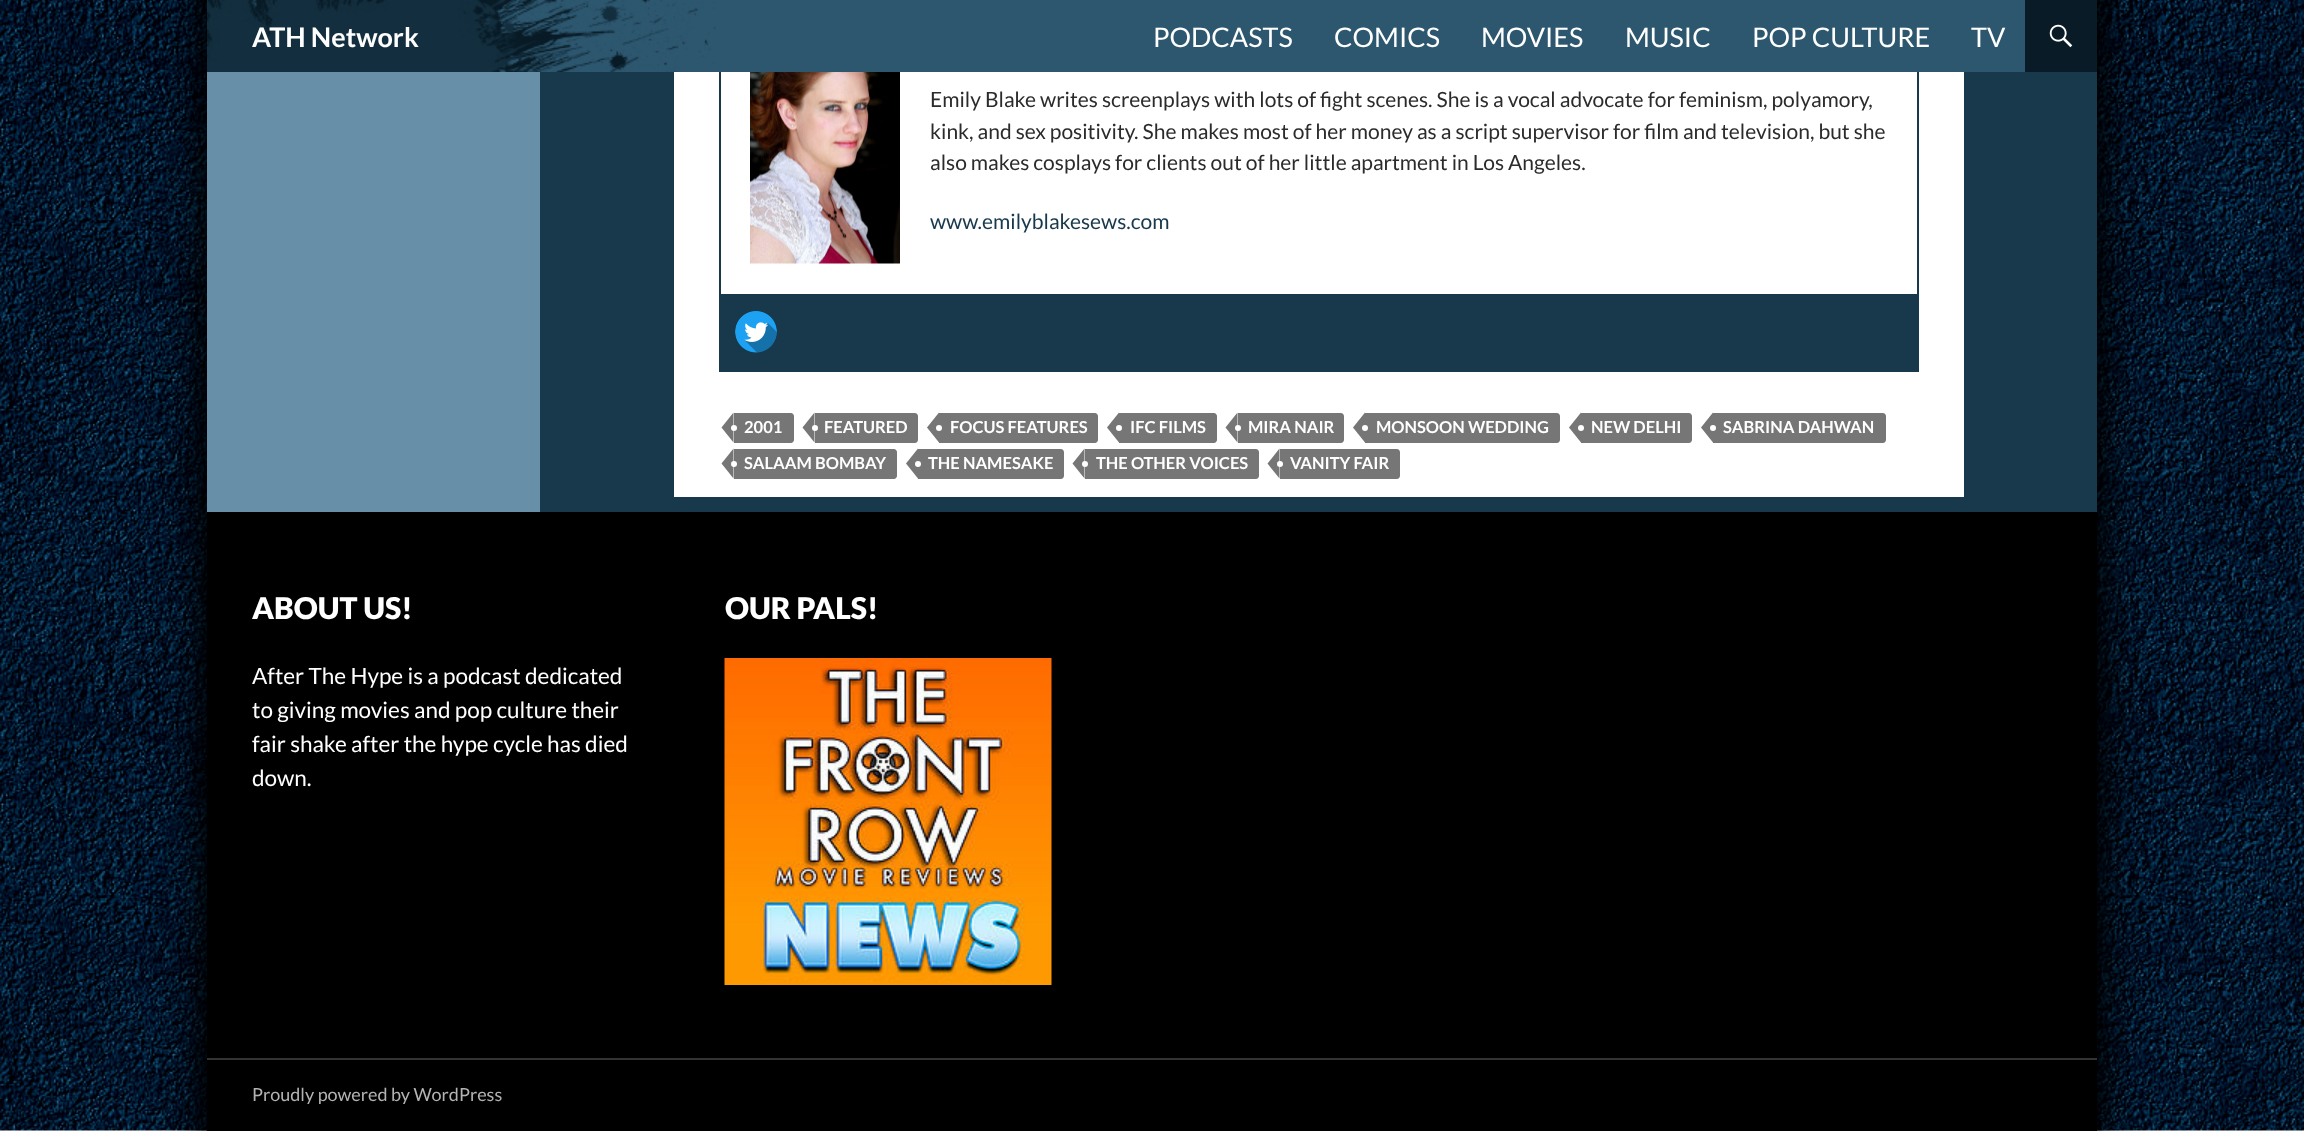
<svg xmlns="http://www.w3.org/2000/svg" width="2304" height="1131">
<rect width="100%" height="100%" fill="#fff"/>
<image x="0" y="0" width="2304" height="1131" href="media/1.png"/>
<rect x="207" y="-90" width="1890" height="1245" fill="#000" filter="blur(30px)"/>
<rect x="207" y="-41" width="1890" height="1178" fill="#000" filter="blur(13.5px)"/>
<rect x="540" y="72" width="1557" height="440" fill="#18394c"/>
<rect x="674" y="72" width="1290" height="425" fill="#fff"/>
<rect x="720" y="9" width="1198" height="362" fill="none" stroke="#18394c" stroke-width="2"/>
<rect x="716" width="1309" height="72" fill="#2d576f"/>
<image x="207" y="0" width="509" height="72" href="media/2.png"/>
<text x="252" y="47" style="font-family:Lato;font-size:27px;font-weight:bold;fill:#fff">ATH Network</text>
<text x="1153" y="47" style="font-family:Lato;font-size:27px;fill:#fff">PODCASTS</text>
<text x="1334" y="47" style="font-family:Lato;font-size:27px;fill:#fff">COMICS</text>
<text x="1481" y="47" style="font-family:Lato;font-size:27px;fill:#fff">MOVIES</text>
<text x="1625" y="47" style="font-family:Lato;font-size:27px;fill:#fff">MUSIC</text>
<text x="1752" y="47" style="font-family:Lato;font-size:27px;fill:#fff">POP CULTURE</text>
<text x="1971" y="47" style="font-family:Lato;font-size:27px;fill:#fff">TV</text>
<rect x="2025" width="72" height="72" fill="#081b26"/>
<image x="2049" y="24" width="24" height="24" href="media/3.png"/>
<rect x="207" y="72" width="333" height="440" fill="#6790a8"/>
<image x="750" y="72" width="150" height="192" href="media/4.png"/>
<text x="930" y="107" style="font-family:Lato;font-size:21px;fill:#2b2b2b">Emily Blake writes screenplays with lots of fight scenes. She is a vocal advocate for feminism, polyamory,</text>
<text x="930" y="139" style="font-family:Lato;font-size:21px;fill:#2b2b2b">kink, and sex positivity. She makes most of her money as a script supervisor for film and television, but she</text>
<text x="930" y="170" style="font-family:Lato;font-size:21px;fill:#2b2b2b">also makes cosplays for clients out of her little apartment in Los Angeles.</text>
<text x="930" y="229" style="font-family:Lato;font-size:21px;fill:#18394c">www.emilyblakesews.com</text>
<rect x="721" y="294" width="1196" height="76" fill="#18394c"/>
<image x="735" y="311" width="42" height="42" href="media/5.png"/>
<path d="M734 413h57c1.5 0 3 1.5 3 3v24c0 1.5-1.5 3-3 3h-57z" fill="#767676"/>
<path d="M733.5 412.5v30l-12-15z" fill="#767676"/>
<text x="744" y="433" style="font-family:Lato;font-size:16.5px;font-weight:bold;fill:#fff">2001</text>
<circle cx="734" cy="428" r="3" fill="#fff"/>
<path d="M815 413h100c1.5 0 3 1.5 3 3v24c0 1.5-1.5 3-3 3h-100z" fill="#767676"/>
<path d="M814.5 412.5v30l-12-15z" fill="#767676"/>
<text x="824" y="433" style="font-family:Lato;font-size:16.5px;font-weight:bold;fill:#fff">FEATURED</text>
<circle cx="815" cy="428" r="3" fill="#fff"/>
<path d="M939 413h156c1.5 0 3 1.5 3 3v24c0 1.5-1.5 3-3 3h-156z" fill="#767676"/>
<path d="M939 412.5v30l-12-15z" fill="#767676"/>
<text x="950" y="433" style="font-family:Lato;font-size:16.5px;font-weight:bold;fill:#fff">FOCUS FEATURES</text>
<circle cx="939" cy="428" r="3" fill="#fff"/>
<path d="M1119 413h95c1.5 0 3 1.5 3 3v24c0 1.5-1.5 3-3 3h-95z" fill="#767676"/>
<path d="M1119 412.5v30l-12-15z" fill="#767676"/>
<text x="1130" y="433" style="font-family:Lato;font-size:16.5px;font-weight:bold;fill:#fff">IFC FILMS</text>
<circle cx="1119" cy="428" r="3" fill="#fff"/>
<path d="M1238 413h103c1.5 0 3 1.5 3 3v24c0 1.5-1.5 3-3 3h-103z" fill="#767676"/>
<path d="M1237.5 412.5v30l-12-15z" fill="#767676"/>
<text x="1248" y="433" style="font-family:Lato;font-size:16.5px;font-weight:bold;fill:#fff">MIRA NAIR</text>
<circle cx="1238" cy="428" r="3" fill="#fff"/>
<path d="M1365 413h192c1.5 0 3 1.5 3 3v24c0 1.5-1.5 3-3 3h-192z" fill="#767676"/>
<path d="M1365 412.5v30l-12-15z" fill="#767676"/>
<text x="1376" y="433" style="font-family:Lato;font-size:16.5px;font-weight:bold;fill:#fff">MONSOON WEDDING</text>
<circle cx="1365" cy="428" r="3" fill="#fff"/>
<path d="M1581 413h108c1.5 0 3 1.5 3 3v24c0 1.5-1.5 3-3 3h-108z" fill="#767676"/>
<path d="M1581 412.5v30l-12-15z" fill="#767676"/>
<text x="1591" y="433" style="font-family:Lato;font-size:16.5px;font-weight:bold;fill:#fff">NEW DELHI</text>
<circle cx="1581" cy="428" r="3" fill="#fff"/>
<path d="M1713 413h170c1.5 0 3 1.5 3 3v24c0 1.5-1.5 3-3 3h-170z" fill="#767676"/>
<path d="M1713 412.5v30l-12-15z" fill="#767676"/>
<text x="1723" y="433" style="font-family:Lato;font-size:16.5px;font-weight:bold;fill:#fff">SABRINA DAHWAN</text>
<circle cx="1713" cy="428" r="3" fill="#fff"/>
<path d="M734 449h160c1.5 0 3 1.5 3 3v24c0 1.5-1.5 3-3 3h-160z" fill="#767676"/>
<path d="M733.5 448.5v30l-12-15z" fill="#767676"/>
<text x="744" y="469" style="font-family:Lato;font-size:16.5px;font-weight:bold;fill:#fff">SALAAM BOMBAY</text>
<circle cx="734" cy="464" r="3" fill="#fff"/>
<path d="M918 449h143c1.5 0 3 1.5 3 3v24c0 1.5-1.5 3-3 3h-143z" fill="#767676"/>
<path d="M918 448.5v30l-12-15z" fill="#767676"/>
<text x="928" y="469" style="font-family:Lato;font-size:16.5px;font-weight:bold;fill:#fff">THE NAMESAKE</text>
<circle cx="918" cy="464" r="3" fill="#fff"/>
<path d="M1085 449h171c1.5 0 3 1.5 3 3v24c0 1.5-1.5 3-3 3h-171z" fill="#767676"/>
<path d="M1084.5 448.5v30l-12-15z" fill="#767676"/>
<text x="1096" y="469" style="font-family:Lato;font-size:16.5px;font-weight:bold;fill:#fff">THE OTHER VOICES</text>
<circle cx="1085" cy="464" r="3" fill="#fff"/>
<path d="M1280 449h117c1.5 0 3 1.5 3 3v24c0 1.5-1.5 3-3 3h-117z" fill="#767676"/>
<path d="M1279.5 448.5v30l-12-15z" fill="#767676"/>
<text x="1290" y="469" style="font-family:Lato;font-size:16.5px;font-weight:bold;fill:#fff">VANITY FAIR</text>
<circle cx="1280" cy="464" r="3" fill="#fff"/>
<rect x="207" y="512" width="1890" height="619" fill="#000"/>
<text x="252" y="619" style="font-family:Lato;font-size:30px;font-weight:900;fill:#fff">ABOUT US!</text>
<text x="252" y="684" style="font-family:Lato;font-size:22.5px;fill:#fff">After The Hype is a podcast dedicated</text>
<text x="252" y="718" style="font-family:Lato;font-size:22.5px;fill:#fff">to giving movies and pop culture their</text>
<text x="252" y="752" style="font-family:Lato;font-size:22.5px;fill:#fff">fair shake after the hype cycle has died</text>
<text x="252" y="786" style="font-family:Lato;font-size:22.5px;fill:#fff">down.</text>
<text x="725" y="619" style="font-family:Lato;font-size:30px;font-weight:900;fill:#fff">OUR PALS!</text>
<image x="724" y="658" width="328" height="327" href="media/6.png"/>
<rect x="207" y="1058" width="1890" height="2" fill="#333"/>
<text x="252" y="1101" style="font-family:Lato;font-size:18px;fill:#b3b3b3">Proudly powered by WordPress</text>
</svg>
